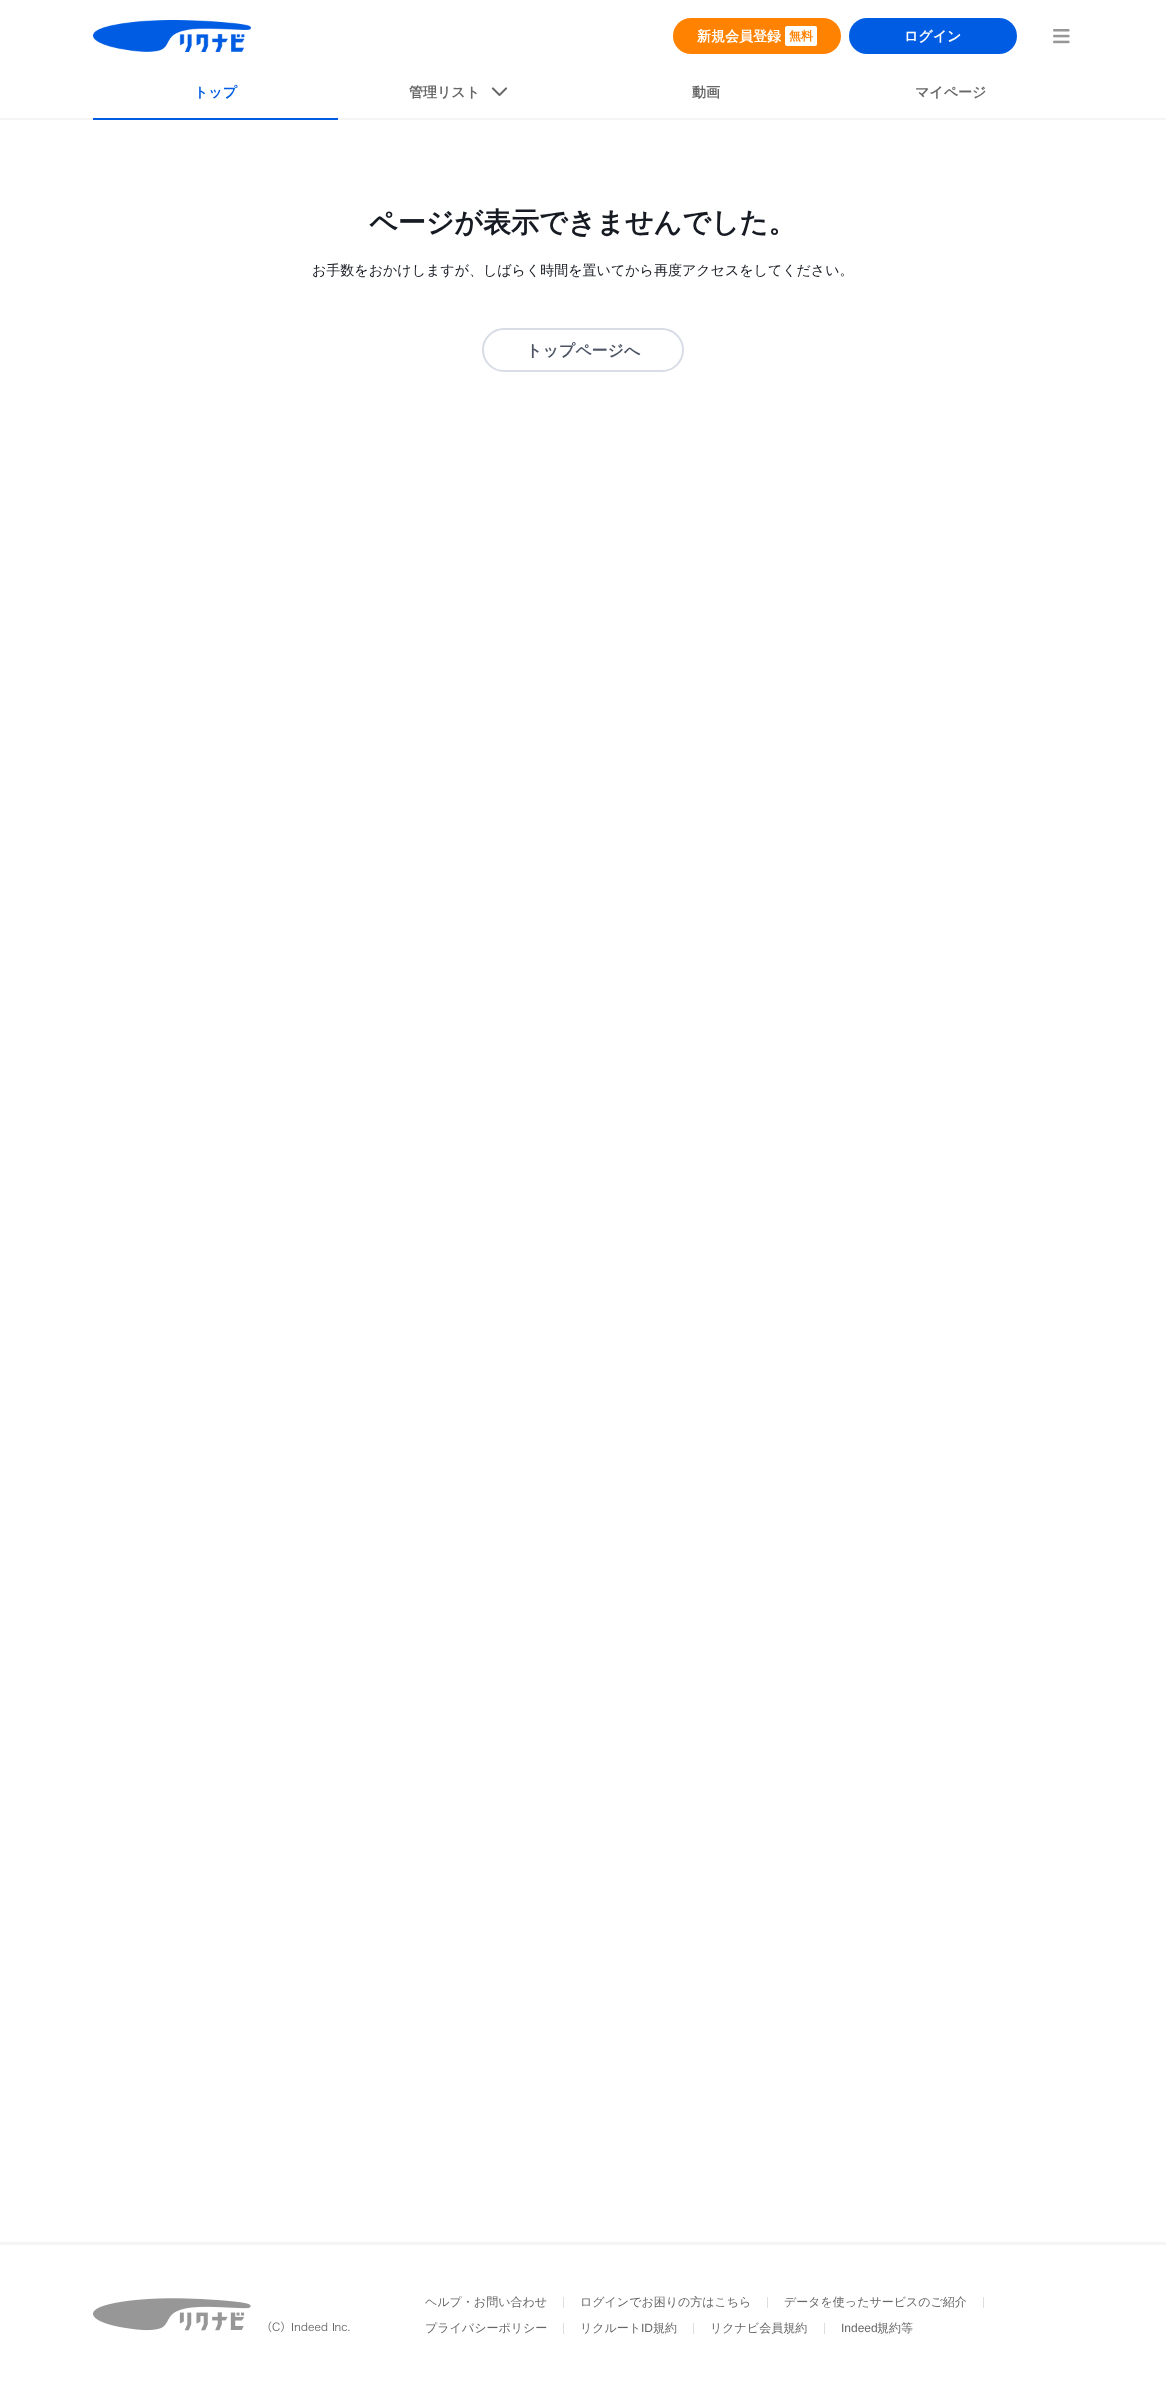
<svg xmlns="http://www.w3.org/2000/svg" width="1166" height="2385">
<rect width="100%" height="100%" fill="#fff"/>
<rect y="118" width="1166" height="2" fill="#f5f5f5"/>
<image x="93" y="20" width="158" height="32" href="media/1.png"/>
<rect x="673" y="18" width="168" height="36" rx="18" fill="#ff8200"/>
<text x="697" y="41" style="font-family:WenQuanYi Zen Hei;font-size:14px;font-weight:bold;fill:#fff">新規会員登録</text>
<rect x="785" y="26" width="32" height="20" rx="2" fill="#fff"/>
<text x="789" y="40" style="font-family:WenQuanYi Zen Hei;font-size:12px;font-weight:bold;fill:#ff8200">無料</text>
<rect x="849" y="18" width="168" height="36" rx="18" fill="#005ce2"/>
<text x="904" y="41" style="font-family:WenQuanYi Zen Hei;font-size:14px;font-weight:bold;fill:#fff">ログイン</text>
<image x="1053" y="29" width="17" height="15" href="media/2.png"/>
<rect x="93" y="118" width="245" height="2" fill="#005ce2"/>
<text x="194" y="97" style="font-family:WenQuanYi Zen Hei;font-size:14px;font-weight:bold;fill:#005ce2">トップ</text>
<text x="409" y="97" style="font-family:WenQuanYi Zen Hei;font-size:14px;font-weight:bold;fill:#676767">管理リスト</text>
<image x="491" y="87" width="17" height="9" href="media/3.png"/>
<text x="692" y="97" style="font-family:WenQuanYi Zen Hei;font-size:14px;font-weight:bold;fill:#676767">動画</text>
<text x="915" y="97" style="font-family:WenQuanYi Zen Hei;font-size:14px;font-weight:bold;fill:#676767">マイページ</text>
<text x="369" y="232" style="font-family:WenQuanYi Zen Hei;font-size:28px;font-weight:bold;fill:#161a22">ページが表示できませんでした。</text>
<text x="312" y="275" style="font-family:WenQuanYi Zen Hei;font-size:14px;font-weight:500;fill:#161a22">お手数をおかけしますが、しばらく時間を置いてから再度アクセスをしてください。</text>
<rect x="483" y="329" width="200" height="42" rx="21" fill="none" stroke="#d7dce5" stroke-width="2"/>
<text x="526" y="356" style="font-family:WenQuanYi Zen Hei;font-size:16px;font-weight:bold;fill:#4e5666">トップページへ</text>
<rect y="2242" width="1166" height="3" fill="#f5f5f5"/>
<image x="93" y="2298" width="257" height="34" href="media/4.png"/>
<text x="425" y="2306" style="font-family:WenQuanYi Zen Hei;font-size:12px;font-weight:500;fill:#676767">ヘルプ・お問い合わせ</text>
<rect x="563" y="2297" width="1" height="11" fill="#dedede"/>
<text x="580" y="2306" style="font-family:WenQuanYi Zen Hei;font-size:12px;font-weight:500;fill:#676767">ログインでお困りの方はこちら</text>
<rect x="767" y="2297" width="1" height="11" fill="#dedede"/>
<text x="784" y="2306" style="font-family:WenQuanYi Zen Hei;font-size:12px;font-weight:500;fill:#676767">データを使ったサービスのご紹介</text>
<rect x="983" y="2297" width="1" height="11" fill="#dedede"/>
<text x="425" y="2332" style="font-family:WenQuanYi Zen Hei;font-size:12px;font-weight:500;fill:#676767">プライバシーポリシー</text>
<rect x="563" y="2323" width="1" height="11" fill="#dedede"/>
<text x="580" y="2332" style="font-family:WenQuanYi Zen Hei;font-size:12px;font-weight:500;fill:#676767">リクルート</text>
<text x="641" y="2332" style="font-family:Liberation Sans;font-size:12px;fill:#676767">ID</text>
<text x="653" y="2332" style="font-family:WenQuanYi Zen Hei;font-size:12px;font-weight:500;fill:#676767">規約</text>
<rect x="693" y="2323" width="1" height="11" fill="#dedede"/>
<text x="710" y="2332" style="font-family:WenQuanYi Zen Hei;font-size:12px;font-weight:500;fill:#676767">リクナビ会員規約</text>
<rect x="824" y="2323" width="1" height="11" fill="#dedede"/>
<text x="841" y="2332" style="font-family:Liberation Sans;font-size:12px;fill:#676767">Indeed</text>
<text x="877" y="2332" style="font-family:WenQuanYi Zen Hei;font-size:12px;font-weight:500;fill:#676767">規約等</text>
</svg>
